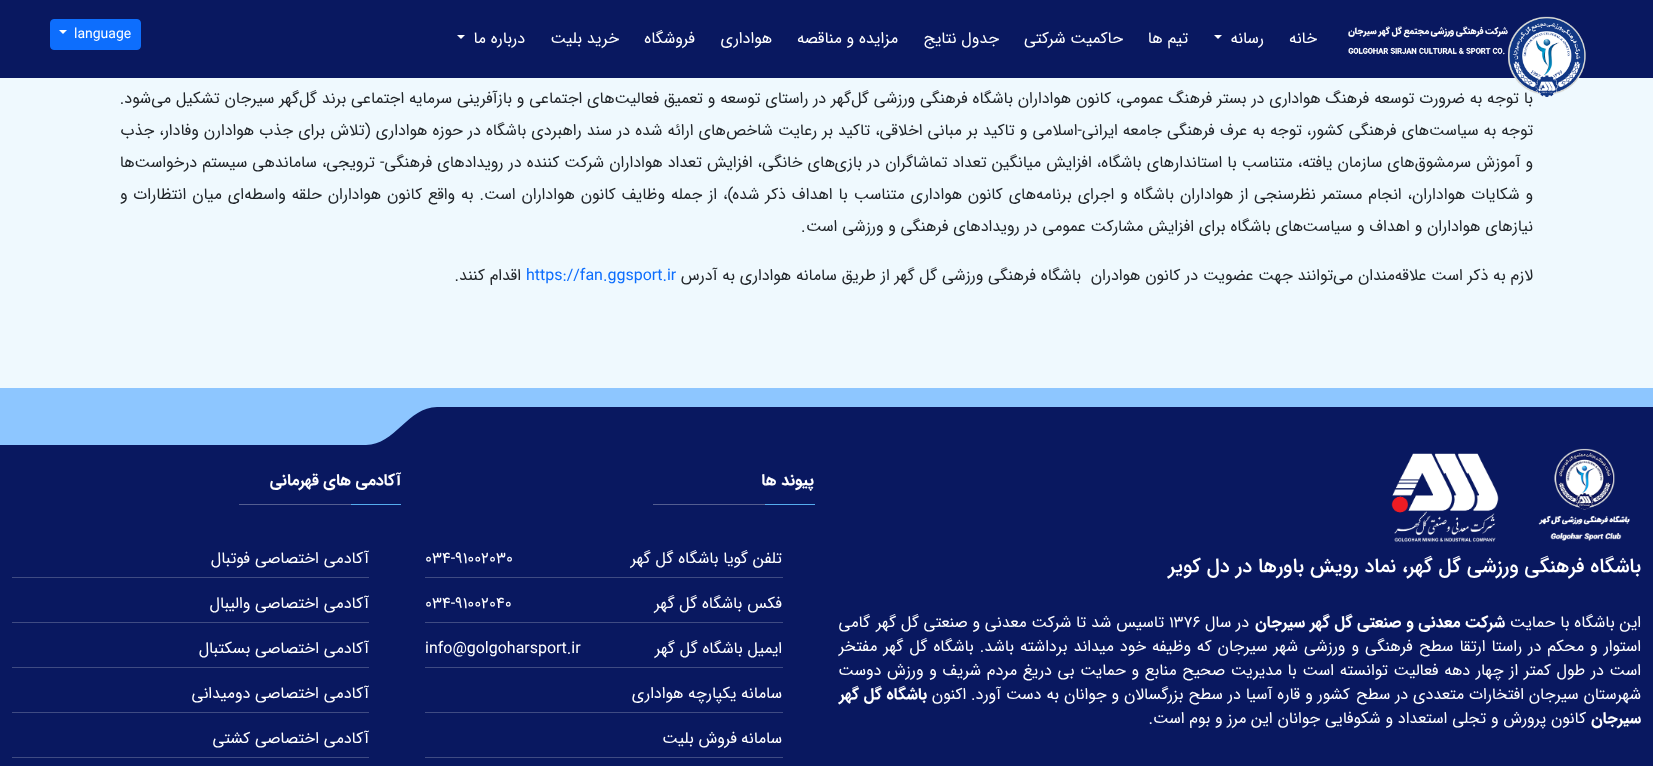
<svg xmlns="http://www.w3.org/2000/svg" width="1653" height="766">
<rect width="100%" height="100%" fill="#eff9fe"/>
<rect width="1653" height="78" fill="#091860"/>
<text x="1533" y="103" style="font-family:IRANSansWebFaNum;font-size:16px;direction:rtl;fill:#212529">با توجه به ضرورت توسعه فرهنگ هواداری در بستر فرهنگ عمومی، کانون هواداران باشگاه فرهنگی ورزشی گل</text>
<image x="1348" y="16" width="238" height="81" href="media/1.png"/>
<text x="1317" y="43" style="font-family:IRANSansWebFaNum;font-size:16px;direction:rtl;fill:#fff">خانه</text>
<text x="1264" y="43" style="font-family:IRANSansWebFaNum;font-size:16px;direction:rtl;fill:#fff">رسانه</text>
<path d="M1214 35h8l-4 4z" fill="#fff"/>
<text x="1188" y="43" style="font-family:IRANSansWebFaNum;font-size:16px;direction:rtl;fill:#fff">تیم ها</text>
<text x="1123" y="43" style="font-family:IRANSansWebFaNum;font-size:16px;direction:rtl;fill:#fff">حاکمیت شرکتی</text>
<text x="999" y="43" style="font-family:IRANSansWebFaNum;font-size:16px;direction:rtl;fill:#fff">جدول نتایج</text>
<text x="898" y="43" style="font-family:IRANSansWebFaNum;font-size:16px;direction:rtl;fill:#fff">مزایده و مناقصه</text>
<text x="772" y="43" style="font-family:IRANSansWebFaNum;font-size:16px;direction:rtl;fill:#fff">هواداری</text>
<text x="695" y="43" style="font-family:IRANSansWebFaNum;font-size:16px;direction:rtl;fill:#fff">فروشگاه</text>
<text x="619" y="43" style="font-family:IRANSansWebFaNum;font-size:16px;direction:rtl;fill:#fff">خرید بلیت</text>
<text x="525" y="43" style="font-family:IRANSansWebFaNum;font-size:16px;direction:rtl;fill:#fff">درباره ما</text>
<path d="M457 35h8l-4 4z" fill="#fff"/>
<rect x="50.5" y="19.5" width="90" height="30" rx="3.5" fill="#0d6efd" stroke="#0d6efd"/>
<text x="74" y="38" style="font-family:IRANSansWebFaNum;font-size:14px;fill:#fff">language</text>
<path d="M59 30h8l-4 4z" fill="#fff"/>
<text x="851" y="103" style="font-family:IRANSansWebFaNum;font-size:16px;direction:rtl;fill:#212529">گهر در راستای توسعه و تعمیق فعالیت‌های اجتماعی و بازآفرینی سرمایه اجتماعی برند گل‌گهر سیرجان تشکیل می</text>
<text x="151" y="103" style="font-family:IRANSansWebFaNum;font-size:16px;direction:rtl;fill:#212529">شود.</text>
<text x="1533" y="135" word-spacing="0.25" style="font-family:IRANSansWebFaNum;font-size:16px;direction:rtl;fill:#212529">توجه به سیاست‌های فرهنگی کشور، توجه به عرف فرهنگی جامعه ایرانی-اسلامی و تاکید بر مبانی اخلاقی، تاکید بر رعایت شاخص‌های ارائه شده در سند راهبردی باشگاه در حوزه هواداری (تلاش</text>
<text x="325" y="135" word-spacing="0.25" style="font-family:IRANSansWebFaNum;font-size:16px;direction:rtl;fill:#212529">برای جذب هوادارن وفادار، جذب</text>
<text x="1533" y="167" word-spacing="0.25" style="font-family:IRANSansWebFaNum;font-size:16px;direction:rtl;fill:#212529">و آموزش سرمشوق‌های سازمان یافته، متناسب با استاندارهای باشگاه، افزایش میانگین تعداد تماشاگران در بازی</text>
<text x="835" y="167" word-spacing="0.25" style="font-family:IRANSansWebFaNum;font-size:16px;direction:rtl;fill:#212529">های خانگی، افزایش تعداد هواداران شرکت کننده در رویدادهای فرهنگی- ترویجی، ساماندهی سیستم درخواست‌ها</text>
<text x="1533" y="199" word-spacing="1.1" style="font-family:IRANSansWebFaNum;font-size:16px;direction:rtl;fill:#212529">و شکایات هواداران، انجام مستمر نظرسنجی‌ از هواداران باشگاه و اجرای برنامه‌های کانون</text>
<text x="962" y="199" word-spacing="1.1" style="font-family:IRANSansWebFaNum;font-size:16px;direction:rtl;fill:#212529">هواداری متناسب با اهداف ذکر شده)، از جمله وظایف کانون هواداران است. به واقع کانون هواداران حلقه واسطه</text>
<text x="244" y="199" word-spacing="1.1" style="font-family:IRANSansWebFaNum;font-size:16px;direction:rtl;fill:#212529">ای میان انتظارات و</text>
<text x="1533" y="231" style="font-family:IRANSansWebFaNum;font-size:16px;direction:rtl;fill:#212529">نیازهای هواداران و اهداف و سیاست</text>
<text x="1303" y="231" style="font-family:IRANSansWebFaNum;font-size:16px;direction:rtl;fill:#212529">های باشگاه برای افزایش مشارکت عمومی در رویدادهای فرهنگی و ورزشی است</text>
<text x="801" y="231" style="font-family:IRANSansWebFaNum;font-size:16px;fill:#212529">.</text>
<text x="1533" y="280" style="font-family:IRANSansWebFaNum;font-size:16px;direction:rtl;fill:#212529" xml:space="preserve">لازم به ذکر است علاقه‌مندان می‌توانند جهت عضویت در کانون هوادران  باشگاه فرهنگی ورزشی گل گهر از طریق سامانه هواداری به آدرس</text>
<text x="526" y="280" style="font-family:IRANSansWebFaNum;font-size:16px;fill:#0d6efd">https://fan.ggsport.ir</text>
<text x="521" y="280" style="font-family:IRANSansWebFaNum;font-size:16px;direction:rtl;fill:#212529">اقدام کنند.</text>
<rect y="407" width="1653" height="359" fill="#091860"/>
<path d="M366 445h-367v-57h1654v19h-1216c-29 0-42 38-71 38z" fill="#8dc6ff"/>
<image x="1538" y="448" width="92" height="93" href="media/2.png"/>
<image x="1391" y="453" width="108" height="89" href="media/3.png"/>
<text x="1641" y="572" style="font-family:IRANSansWebFaNum;font-size:20px;font-weight:500;direction:rtl;fill:#fff">باشگاه فرهنگی ورزشی گل گهر، نماد رویش باورها در دل کویر</text>
<text x="1641" y="627" style="font-family:IRANSansWebFaNum;font-size:16px;direction:rtl;fill:#fff">این باشگاه با حمایت</text>
<text x="1505" y="627" style="font-family:IRANSansWebFaNum;font-size:16px;font-weight:bold;direction:rtl;fill:#fff">شرکت معدنی و صنعتی گل گهر سیرجان</text>
<text x="1249" y="627" style="font-family:IRANSansWebFaNum;font-size:16px;direction:rtl;fill:#fff">در سال</text>
<text x="1169" y="627" style="font-family:IRANSansWebFaNum;font-size:16px;fill:#fff">۱۳۷۶</text>
<text x="1164" y="627" style="font-family:IRANSansWebFaNum;font-size:16px;direction:rtl;fill:#fff">تاسیس شد تا شرکت معدنی و صنعتی گل گهر</text>
<text x="870" y="627" style="font-family:IRANSansWebFaNum;font-size:16px;direction:rtl;fill:#fff">گامی</text>
<text x="1641" y="651" word-spacing="1.25" style="font-family:IRANSansWebFaNum;font-size:16px;direction:rtl;fill:#fff">استوار و محکم در راستا ارتقا سطح فرهنگی و ورزشی شهر سیرجان که</text>
<text x="1191" y="651" word-spacing="1.25" style="font-family:IRANSansWebFaNum;font-size:16px;direction:rtl;fill:#fff">وظیفه خود میداند برداشته باشد. باشگاه گل گهر مفتخر</text>
<text x="1641" y="675" word-spacing="0.9" style="font-family:IRANSansWebFaNum;font-size:16px;direction:rtl;fill:#fff">است در طول کمتر از چهار دهه فعالیت توانسته است با</text>
<text x="1282" y="675" word-spacing="0.9" style="font-family:IRANSansWebFaNum;font-size:16px;direction:rtl;fill:#fff">مدیریت صحیح منابع و حمایت بی دریغ مردم شریف و ورزش دوست</text>
<text x="1641" y="699" style="font-family:IRANSansWebFaNum;font-size:16px;direction:rtl;fill:#fff">شهرستان سیرجان افتخارات متعددی در سطح</text>
<text x="1350" y="699" word-spacing="0.1" style="font-family:IRANSansWebFaNum;font-size:16px;direction:rtl;fill:#fff">کشور و قاره آسیا در سطح بزرگسالان و جوانان به دست آورد. اکنون</text>
<text x="927" y="699" style="font-family:IRANSansWebFaNum;font-size:16px;font-weight:bold;direction:rtl;fill:#fff">باشگاه گل گهر</text>
<text x="1641" y="723" style="font-family:IRANSansWebFaNum;font-size:16px;font-weight:bold;direction:rtl;fill:#fff">سیرجان</text>
<text x="1586" y="723" style="font-family:IRANSansWebFaNum;font-size:16px;direction:rtl;fill:#fff">کانون پرورش و تجلی استعداد و شکوفایی جوانان این مرز و بوم است.</text>
<text x="814" y="485" style="font-family:IRANSansWebFaNum;font-size:16px;font-weight:bold;direction:rtl;fill:#fff">پیوند ها</text>
<rect x="765" y="504" width="50" height="1" fill="#55acee"/>
<rect x="653" y="504" width="112" height="1" fill="#535d90"/>
<rect x="425" y="577" width="358" height="1" fill="#3f4b83"/>
<text x="782" y="563" style="font-family:IRANSansWebFaNum;font-size:16px;direction:rtl;fill:#fff">تلفن گویا باشگاه گل گهر</text>
<text x="425" y="563" style="font-family:IRANSansWebFaNum;font-size:16px;fill:#fff">034-91002030</text>
<rect x="425" y="622" width="358" height="1" fill="#3f4b83"/>
<text x="782" y="608" style="font-family:IRANSansWebFaNum;font-size:16px;direction:rtl;fill:#fff">فکس باشگاه گل گهر</text>
<text x="425" y="608" style="font-family:IRANSansWebFaNum;font-size:16px;fill:#fff">034-91002040</text>
<rect x="425" y="667" width="358" height="1" fill="#3f4b83"/>
<text x="782" y="653" style="font-family:IRANSansWebFaNum;font-size:16px;direction:rtl;fill:#fff">ایمیل باشگاه گل گهر</text>
<text x="425" y="653" style="font-family:IRANSansWebFaNum;font-size:16px;fill:#fff">info@golgoharsport.ir</text>
<rect x="425" y="712" width="358" height="1" fill="#3f4b83"/>
<text x="782" y="698" style="font-family:IRANSansWebFaNum;font-size:16px;direction:rtl;fill:#fff">سامانه یکپارچه هواداری</text>
<rect x="425" y="757" width="358" height="1" fill="#3f4b83"/>
<text x="782" y="743" style="font-family:IRANSansWebFaNum;font-size:16px;direction:rtl;fill:#fff">سامانه</text>
<text x="737" y="743" style="font-family:IRANSansWebFaNum;font-size:16px;direction:rtl;fill:#fff">فروش بلیت</text>
<text x="401" y="485" style="font-family:IRANSansWebFaNum;font-size:16px;font-weight:bold;direction:rtl;fill:#fff">آکادمی های قهرمانی</text>
<rect x="351" y="504" width="50" height="1" fill="#55acee"/>
<rect x="239" y="504" width="112" height="1" fill="#535d90"/>
<rect x="12" y="577" width="357" height="1" fill="#3f4b83"/>
<text x="369" y="563" style="font-family:IRANSansWebFaNum;font-size:16px;direction:rtl;fill:#fff">آکادمی اختصاصی</text>
<text x="250" y="563" style="font-family:IRANSansWebFaNum;font-size:16px;direction:rtl;fill:#fff">فوتبال</text>
<rect x="12" y="622" width="357" height="1" fill="#3f4b83"/>
<text x="369" y="608" style="font-family:IRANSansWebFaNum;font-size:16px;direction:rtl;fill:#fff">آکادمی اختصاصی والیبال</text>
<rect x="12" y="667" width="357" height="1" fill="#3f4b83"/>
<text x="369" y="653" style="font-family:IRANSansWebFaNum;font-size:16px;direction:rtl;fill:#fff">آکادمی اختصاصی بسکتبال</text>
<rect x="12" y="712" width="357" height="1" fill="#3f4b83"/>
<text x="369" y="698" style="font-family:IRANSansWebFaNum;font-size:16px;direction:rtl;fill:#fff">آکادمی اختصاصی دومیدانی</text>
<rect x="12" y="757" width="357" height="1" fill="#3f4b83"/>
<text x="369" y="743" style="font-family:IRANSansWebFaNum;font-size:16px;direction:rtl;fill:#fff">آکادمی اختصاصی کشتی</text>
</svg>
